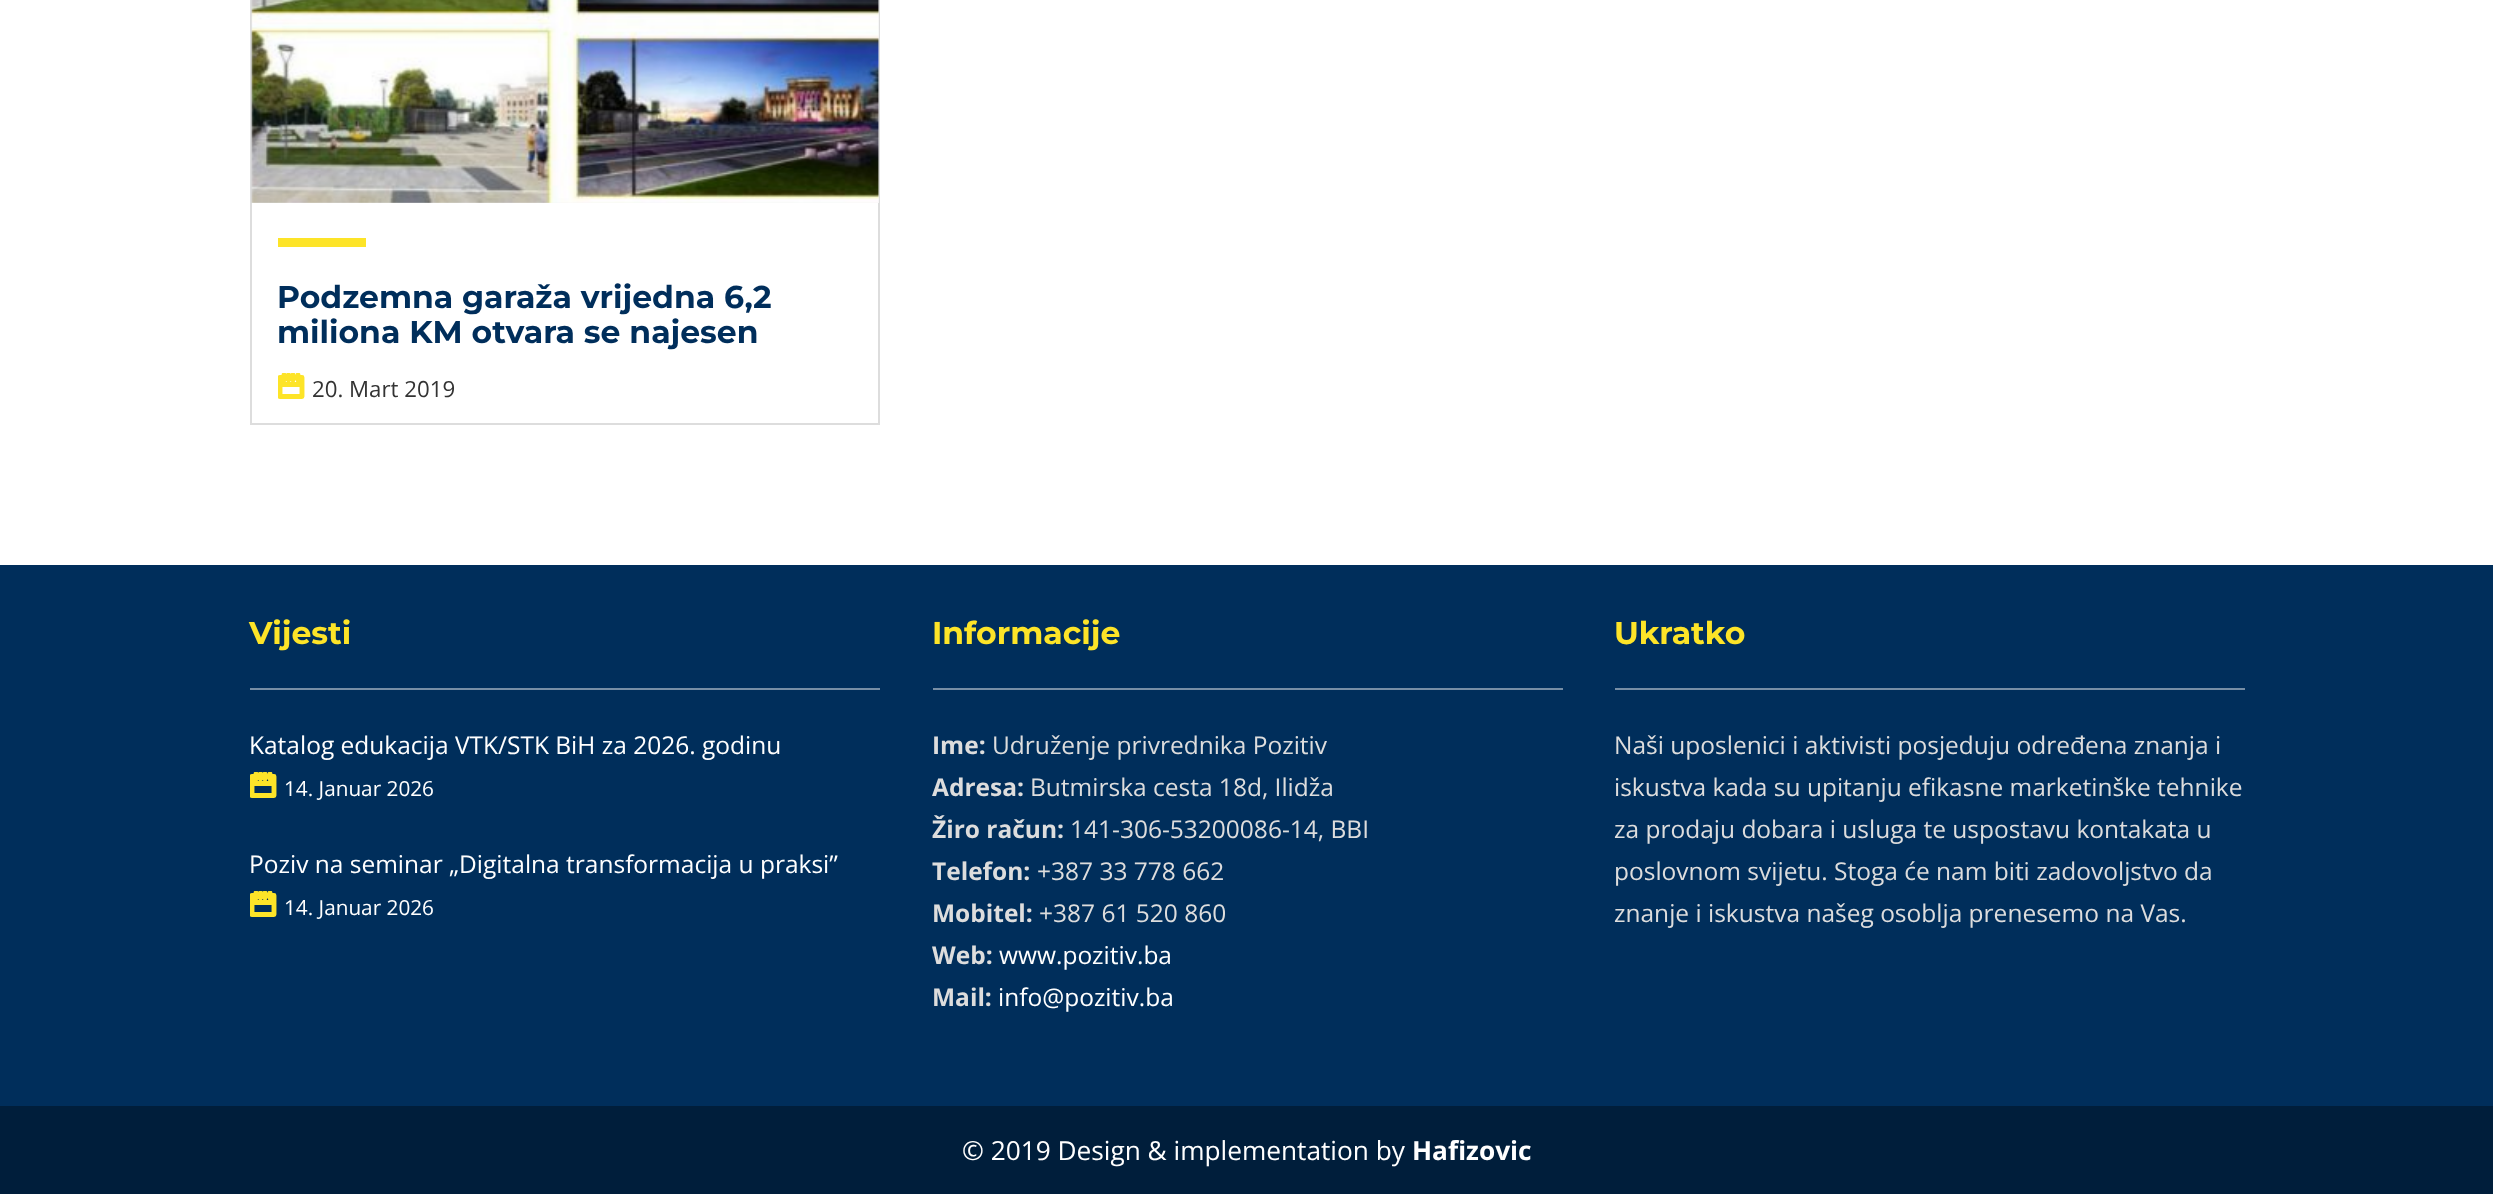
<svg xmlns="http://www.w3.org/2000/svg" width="2493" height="1194">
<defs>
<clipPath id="clip1"><rect x="278" y="373" width="32" height="31"/></clipPath>
<clipPath id="clip2"><rect x="250" y="772" width="32" height="31"/></clipPath>
<clipPath id="clip3"><rect x="250" y="891" width="32" height="31"/></clipPath>
</defs>
<rect width="100%" height="100%" fill="#fff"/>
<rect x="251" y="-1" width="628" height="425" fill="none" stroke="#ddd" stroke-width="2"/>
<rect x="252" width="627" height="203" fill="#f0f0f0"/>
<image x="251" y="0" width="628" height="203" href="media/1.png"/>
<rect x="278" y="238" width="88" height="9" fill="#fde428"/>
<text x="277" y="308" style="font-family:Montserrat;font-size:31.5px;font-weight:bold;fill:#002e5b">Podzemna garaža vrijedna 6,2</text>
<text x="277" y="343" style="font-family:Montserrat;font-size:31.5px;font-weight:bold;fill:#002e5b">miliona KM otvara se najesen</text>
<text x="312" y="397" style="font-family:Open Sans;font-size:22.25px;fill:#333">20. Mart 2019</text>
<g clip-path="url(#clip1)">
<path d="M280 377.5v19h22v-19zm0 7h22m-18-9.5v5m4.5-5v5m4.5-5v5m5-5v5" fill="none" stroke="#fde428" stroke-width="4.9" stroke-linecap="round" stroke-linejoin="round"/>
</g>
<rect y="565" width="2493" height="541" fill="#002e5b"/>
<text x="249" y="644" style="font-family:Montserrat;font-size:31.5px;font-weight:bold;fill:#fde428">Vijesti</text>
<rect x="250" y="688" width="630" height="2" fill="#778ea5"/>
<text x="249" y="754" style="font-family:Open Sans;font-size:24.5px;fill:#fff">Katalog edukacija VTK/STK BiH za 2026. godinu</text>
<g clip-path="url(#clip2)">
<path d="M252 776.5v19h22v-19zm0 7h22m-18-9.5v5m4.5-5v5m4.5-5v5m5-5v5" fill="none" stroke="#fde428" stroke-width="4.9" stroke-linecap="round" stroke-linejoin="round"/>
</g>
<text x="284" y="796" style="font-family:Open Sans;font-size:20.75px;fill:#fff">14. Januar 2026</text>
<text x="249" y="873" style="font-family:Open Sans;font-size:24.5px;fill:#fff">Poziv na seminar „Digitalna transformacija u praksi”</text>
<g clip-path="url(#clip3)">
<path d="M252 895.5v19h22v-19zm0 7h22m-18-9.5v5m4.5-5v5m4.5-5v5m5-5v5" fill="none" stroke="#fde428" stroke-width="4.9" stroke-linecap="round" stroke-linejoin="round"/>
</g>
<text x="284" y="915" style="font-family:Open Sans;font-size:20.75px;fill:#fff">14. Januar 2026</text>
<text x="932" y="644" style="font-family:Montserrat;font-size:31.5px;font-weight:bold;fill:#fde428">Informacije</text>
<rect x="933" y="688" width="630" height="2" fill="#778ea5"/>
<text x="932" y="754" style="font-family:Open Sans;font-size:24.5px;font-weight:bold;fill:#ddd">Ime:</text>
<text x="992" y="754" style="font-family:Open Sans;font-size:24.5px;fill:#ddd">Udruženje privrednika Pozitiv</text>
<text x="932" y="796" style="font-family:Open Sans;font-size:24.5px;font-weight:bold;fill:#ddd">Adresa:</text>
<text x="1030" y="796" style="font-family:Open Sans;font-size:24.5px;fill:#ddd">Butmirska cesta 18d, Ilidža</text>
<text x="932" y="838" style="font-family:Open Sans;font-size:24.5px;font-weight:bold;fill:#ddd">Žiro račun:</text>
<text x="1070" y="838" style="font-family:Open Sans;font-size:24.5px;fill:#ddd">141-306-53200086-14, BBI</text>
<text x="932" y="880" style="font-family:Open Sans;font-size:24.5px;font-weight:bold;fill:#ddd">Telefon:</text>
<text x="1037" y="880" style="font-family:Open Sans;font-size:24.5px;fill:#ddd">+387 33 778 662</text>
<text x="932" y="922" style="font-family:Open Sans;font-size:24.5px;font-weight:bold;fill:#ddd">Mobitel:</text>
<text x="1039" y="922" style="font-family:Open Sans;font-size:24.5px;fill:#ddd">+387 61 520 860</text>
<text x="932" y="964" style="font-family:Open Sans;font-size:24.5px;font-weight:bold;fill:#ddd">Web:</text>
<text x="999" y="964" style="font-family:Open Sans;font-size:24.5px;fill:#fff">www.pozitiv.ba</text>
<text x="932" y="1006" style="font-family:Open Sans;font-size:24.5px;font-weight:bold;fill:#ddd">Mail:</text>
<text x="998" y="1006" style="font-family:Open Sans;font-size:24.5px;fill:#fff">info@pozitiv.ba</text>
<text x="1614" y="644" style="font-family:Montserrat;font-size:31.5px;font-weight:bold;fill:#fde428">Ukratko</text>
<rect x="1615" y="688" width="630" height="2" fill="#778ea5"/>
<text x="1614" y="754" style="font-family:Open Sans;font-size:24.5px;fill:#ddd">Naši uposlenici i aktivisti posjeduju određena znanja i</text>
<text x="1614" y="796" style="font-family:Open Sans;font-size:24.5px;fill:#ddd">iskustva kada su upitanju efikasne marketinške tehnike</text>
<text x="1614" y="838" style="font-family:Open Sans;font-size:24.5px;fill:#ddd">za prodaju dobara i usluga te uspostavu kontakata u</text>
<text x="1614" y="880" style="font-family:Open Sans;font-size:24.5px;fill:#ddd">poslovnom svijetu. Stoga će nam biti zadovoljstvo da</text>
<text x="1614" y="922" style="font-family:Open Sans;font-size:24.5px;fill:#ddd">znanje i iskustva našeg osoblja prenesemo na Vas.</text>
<rect y="1106" width="2493" height="88" fill="#001e3b"/>
<text x="962" y="1160" style="font-family:Open Sans;font-size:26.25px;fill:#fff">© 2019 Design &amp; implementation by</text>
<text x="1412" y="1160" style="font-family:Open Sans;font-size:26.25px;font-weight:bold;fill:#fff">Hafizovic</text>
</svg>
